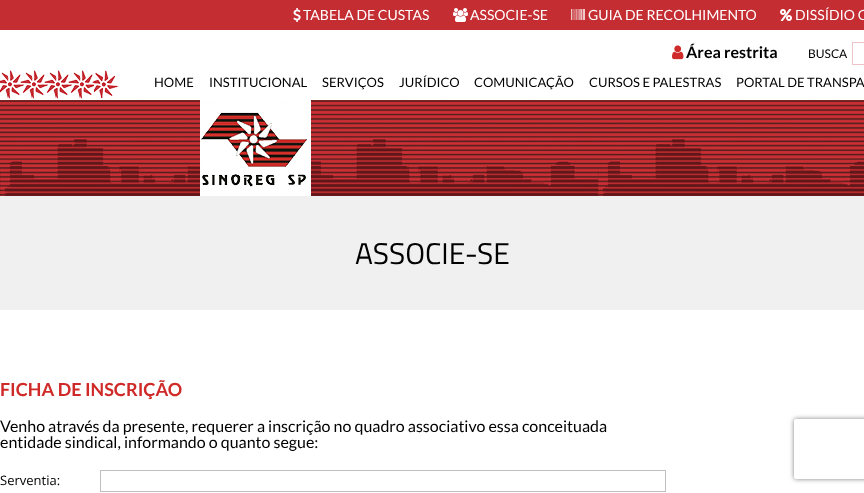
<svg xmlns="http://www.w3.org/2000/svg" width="864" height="493">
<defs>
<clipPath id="clip1"><path d="M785 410h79v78h-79zm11 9h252c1 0 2 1 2 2v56c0 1-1 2-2 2h-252c-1 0-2-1-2-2v-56c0-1 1-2 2-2z" clip-rule="evenodd"/></clipPath>
</defs>
<rect width="100%" height="100%" fill="#fff"/>
<rect width="864" height="30" fill="#c42d32"/>
<image x="293" y="8" width="8" height="14" href="media/1.png"/>
<text x="303" y="20" style="font-family:Lato;font-size:14px;fill:#fff">TABELA DE CUSTAS</text>
<image x="453" y="8" width="15" height="14" href="media/2.png"/>
<text x="470" y="20" style="font-family:Lato;font-size:14px;fill:#fff">ASSOCIE-SE</text>
<image x="571" y="9" width="14" height="11" href="media/3.png"/>
<text x="588" y="20" style="font-family:Lato;font-size:14px;fill:#fff">GUIA DE RECOLHIMENTO</text>
<image x="780" y="9" width="12" height="12" href="media/4.png"/>
<text x="795" y="20" style="font-family:Lato;font-size:14px;fill:#fff">DISSÍDIO C</text>
<image x="0" y="70" width="94" height="29" href="media/5.png"/>
<image x="672" y="45" width="12" height="15" href="media/6.png"/>
<text x="686" y="58" style="font-family:Lato;font-size:16px;font-weight:bold;fill:#000">Área restrita</text>
<text x="808" y="58" style="font-family:Lato;font-size:12px;fill:#000">BUSCA</text>
<rect x="852.5" y="42.5" width="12" height="22" fill="none" stroke="#eec4c6"/>
<image x="94" y="70" width="25" height="28" href="media/7.png"/>
<text x="154" y="87" style="font-family:Lato;font-size:13px;fill:#000">HOME</text>
<text x="209" y="87" style="font-family:Lato;font-size:13px;fill:#000">INSTITUCIONAL</text>
<text x="322" y="87" style="font-family:Lato;font-size:13px;fill:#000">SERVIÇOS</text>
<text x="399" y="87" style="font-family:Lato;font-size:13px;fill:#000">JURÍDICO</text>
<text x="474" y="87" style="font-family:Lato;font-size:13px;fill:#000">COMUNICAÇÃO</text>
<text x="589" y="87" style="font-family:Lato;font-size:13px;fill:#000">CURSOS E PALESTRAS</text>
<text x="736" y="87" style="font-family:Lato;font-size:13px;fill:#000">PORTAL DE TRANSPA</text>
<image x="0" y="100" width="864" height="96" href="media/8.png"/>
<image x="200" y="100" width="111" height="96" href="media/9.png"/>
<rect y="196" width="864" height="114" fill="#f0f0f0"/>
<text x="355" y="264" style="font-family:Titillium Web;font-size:30px;fill:#000">ASSOCIE-SE</text>
<text x="0" y="396" style="font-family:Lato;font-size:18px;font-weight:bold;fill:#cf2a28">FICHA DE INSCRIÇÃO</text>
<text x="0" y="432" style="font-family:Lato;font-size:16px;fill:#000">Venho através da presente, requerer a inscrição no quadro associativo essa conceituada</text>
<text x="0" y="448" style="font-family:Lato;font-size:16px;fill:#000">entidade sindical, informando o quanto segue:</text>
<text x="0" y="485" style="font-family:Open Sans;font-size:13px;fill:#000">Serventia:</text>
<rect x="100.5" y="470.5" width="565" height="21" fill="none" stroke="#bfbfbf"/>
<g clip-path="url(#clip1)">
<rect x="794" y="419" width="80" height="60" rx="2" fill="#808080" filter="blur(2.5px)"/>
</g>
</svg>
